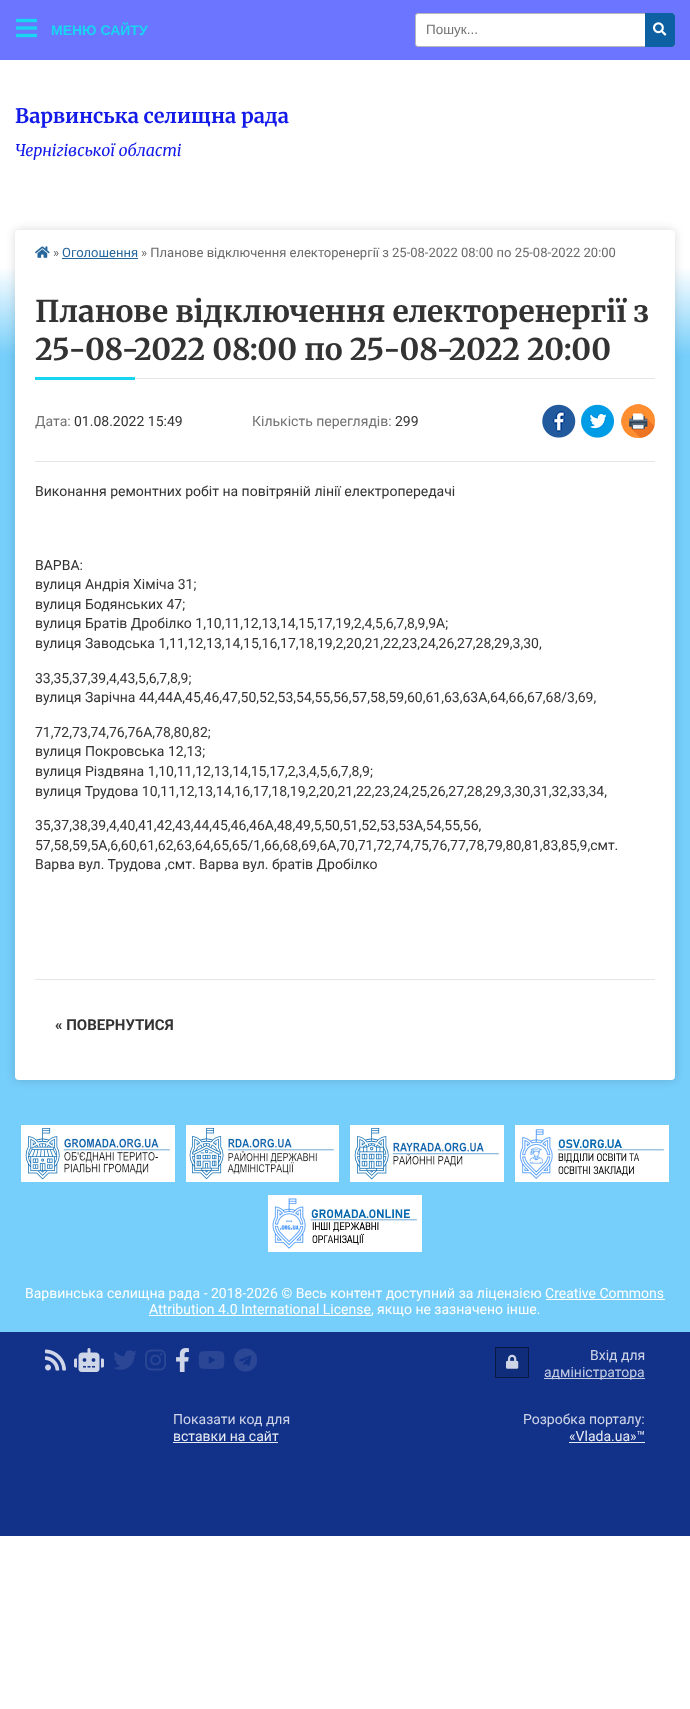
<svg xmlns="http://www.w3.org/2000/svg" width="690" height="1709">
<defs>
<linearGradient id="g1" gradientUnits="userSpaceOnUse" x1="345" y1="60" x2="345" y2="1536"><stop offset="0.14" stop-color="#fff"/><stop offset="0.2" stop-color="#76cefa"/></linearGradient>
</defs>
<rect width="100%" height="100%" fill="#fff"/>
<rect y="268" width="690" height="1064" fill="url(#g1)"/>
<rect x="15" y="230" width="660" height="850" rx="4" fill="#00000026" filter="blur(5px)"/>
<rect x="15" y="230" width="660" height="850" rx="4" fill="#fff"/>
<rect width="690" height="60" fill="#6b75ff"/>
<image x="16" y="18" width="21" height="20" href="media/1.png"/>
<text x="51" y="35" style="font-family:Liberation Sans;font-size:14px;font-weight:bold;fill:#18d5f2">МЕНЮ САЙТУ</text>
<image x="35" y="246" width="15" height="12" href="media/2.png"/>
<text x="53" y="257" style="font-family:Roboto;font-size:13px;fill:#696969">»</text>
<text x="62" y="257" style="font-family:Roboto;font-size:13px;fill:#25669c">Оголошення</text>
<rect x="62" y="258" width="76" height="1" fill="#25669c"/>
<text x="141" y="257" style="font-family:Roboto;font-size:13px;fill:#696969">» Планове відключення електоренергії з 25-08-2022 08:00 по 25-08-2022 20:00</text>
<rect x="135" y="378" width="520" height="1" fill="#e5e5e5"/>
<text x="35" y="322" style="font-family:Merriweather;font-size:30px;font-weight:300;fill:#333">Планове відключення електоренергії з</text>
<text x="35" y="360" style="font-family:Merriweather;font-size:30px;font-weight:300;fill:#333">25-08-2022 08:00 по 25-08-2022 20:00</text>
<rect x="35" y="377" width="100" height="3" fill="#18d5f2"/>
<text x="35" y="426" style="font-family:Roboto;font-size:14px;fill:#727272">Дата:</text>
<text x="74" y="426" style="font-family:Roboto;font-size:14px;fill:#333">01.08.2022 15:49</text>
<text x="252" y="426" style="font-family:Roboto;font-size:14px;fill:#727272">Кількість переглядів:</text>
<text x="395" y="426" style="font-family:Roboto;font-size:14px;fill:#333">299</text>
<image x="542" y="404" width="34" height="34" href="media/3.png"/>
<image x="581" y="404" width="33" height="34" href="media/4.png"/>
<image x="621" y="404" width="34" height="34" href="media/5.png"/>
<rect x="35" y="461" width="620" height="1" fill="#e5e5e5"/>
<text x="35" y="496" style="font-family:Roboto;font-size:14px;fill:#333">Виконання ремонтних робіт на повітряній лінії електропередачі</text>
<text x="35" y="570" style="font-family:Roboto;font-size:14px;fill:#333">ВАРВА:</text>
<text x="35" y="589" style="font-family:Roboto;font-size:14px;fill:#333">вулиця Андрія Хіміча 31;</text>
<text x="35" y="609" style="font-family:Roboto;font-size:14px;fill:#333">вулиця Бодянських 47;</text>
<text x="35" y="628" style="font-family:Roboto;font-size:14px;fill:#333">вулиця Братів Дробілко 1,10,11,12,13,14,15,17,19,2,4,5,6,7,8,9,9А;</text>
<text x="35" y="648" style="font-family:Roboto;font-size:14px;fill:#333">вулиця Заводська 1,11,12,13,14,15,16,17,18,19,2,20,21,22,23,24,26,27,28,29,3,30,</text>
<text x="35" y="683" style="font-family:Roboto;font-size:14px;fill:#333">33,35,37,39,4,43,5,6,7,8,9;</text>
<text x="35" y="702" style="font-family:Roboto;font-size:14px;fill:#333">вулиця Зарічна 44,44А,45,46,47,50,52,53,54,55,56,57,58,59,60,61,63,63А,64,66,67,68/3,69,</text>
<text x="35" y="737" style="font-family:Roboto;font-size:14px;fill:#333">71,72,73,74,76,76А,78,80,82;</text>
<text x="35" y="756" style="font-family:Roboto;font-size:14px;fill:#333">вулиця Покровська 12,13;</text>
<text x="35" y="776" style="font-family:Roboto;font-size:14px;fill:#333">вулиця Різдвяна 1,10,11,12,13,14,15,17,2,3,4,5,6,7,8,9;</text>
<text x="35" y="796" style="font-family:Roboto;font-size:14px;fill:#333">вулиця Трудова 10,11,12,13,14,16,17,18,19,2,20,21,22,23,24,25,26,27,28,29,3,30,31,32,33,34,</text>
<text x="35" y="830" style="font-family:Roboto;font-size:14px;fill:#333">35,37,38,39,4,40,41,42,43,44,45,46,46А,48,49,5,50,51,52,53,53А,54,55,56,</text>
<text x="35" y="850" style="font-family:Roboto;font-size:14px;fill:#333">57,58,59,5А,6,60,61,62,63,64,65,65/1,66,68,69,6А,70,71,72,74,75,76,77,78,79,80,81,83,85,9,смт.</text>
<text x="35" y="869" style="font-family:Roboto;font-size:14px;fill:#333">Варва вул. Трудова ,смт. Варва вул. братів Дробілко</text>
<rect x="35" y="979" width="620" height="1" fill="#e5e5e5"/>
<text x="55" y="1030" style="font-family:Roboto;font-size:15px;font-weight:bold;fill:#333">« ПОВЕРНУТИСЯ</text>
<rect x="415.5" y="13.5" width="259" height="33" rx="2.5" fill="#fff" stroke="#b7b7b7"/>
<text x="426" y="34" style="font-family:Liberation Sans;font-size:13.5px;fill:#727272">Пошук...</text>
<path d="M645 13h27c1.5 0 3 1.5 3 3v28c0 1.5-1.5 3-3 3h-27z" fill="#0d61a2"/>
<image x="653" y="22" width="14" height="14" href="media/6.png"/>
<text x="15" y="123" style="font-family:Merriweather;font-size:20px;font-weight:300;fill:#1219e8">Варвинська селищна рада</text>
<text x="15" y="156" style="font-family:Merriweather;font-size:16px;font-weight:300;font-style:italic;fill:#1219e8">Чернігівської області</text>
<image x="21" y="1125" width="154" height="57" href="media/7.png"/>
<image x="186" y="1125" width="153" height="57" href="media/8.png"/>
<image x="350" y="1125" width="154" height="57" href="media/9.png"/>
<image x="515" y="1125" width="154" height="57" href="media/10.png"/>
<image x="268" y="1195" width="154" height="57" href="media/11.png"/>
<text x="25" y="1298" style="font-family:Roboto;font-size:14px;fill:#fff">Варвинська селищна рада - 2018-2026 © Весь контент доступний за ліцензією Creative Commons</text>
<rect x="149" y="1315" width="222" height="1" fill="#fff"/>
<text x="149" y="1314" style="font-family:Roboto;font-size:14px;fill:#fff">Attribution 4.0 International License, якщо не зазначено інше.</text>
<rect x="546" y="1299" width="119" height="1" fill="#fff"/>
<rect y="1332" width="690" height="204" fill="#12328a"/>
<image x="45" y="1349" width="21" height="22" href="media/12.png"/>
<image x="74" y="1348" width="30" height="24" href="media/13.png"/>
<image x="113" y="1350" width="24" height="20" href="media/14.png"/>
<image x="145" y="1349" width="21" height="22" href="media/15.png"/>
<image x="176" y="1348" width="13" height="24" href="media/16.png"/>
<image x="198" y="1351" width="27" height="18" href="media/17.png"/>
<image x="234" y="1348" width="23" height="24" href="media/18.png"/>
<rect x="495.5" y="1347.5" width="33" height="30" fill="#102d7c" stroke="#091944"/>
<image x="506" y="1354" width="13" height="15" href="media/19.png"/>
<text x="590" y="1360" style="font-family:Roboto;font-size:14px;fill:#d0d6e8">Вхід для</text>
<rect x="544" y="1378" width="101" height="1" fill="#c4cce2"/>
<text x="544" y="1377" style="font-family:Roboto;font-size:14px;fill:#c4cce2">адміністратора</text>
<text x="173" y="1424" style="font-family:Roboto;font-size:14px;fill:#d0d6e8">Показати код для</text>
<text x="173" y="1441" style="font-family:Roboto;font-size:14px;fill:#e7ebf3">вставки на сайт</text>
<rect x="173" y="1442" width="105" height="1" fill="#e7ebf3"/>
<text x="523" y="1424" style="font-family:Roboto;font-size:14px;fill:#d0d6e8">Розробка порталу:</text>
<text x="569" y="1441" style="font-family:Roboto;font-size:14px;fill:#e7ebf3">«Vlada.ua»™</text>
<rect x="569" y="1442" width="76" height="1" fill="#e7ebf3"/>
</svg>
